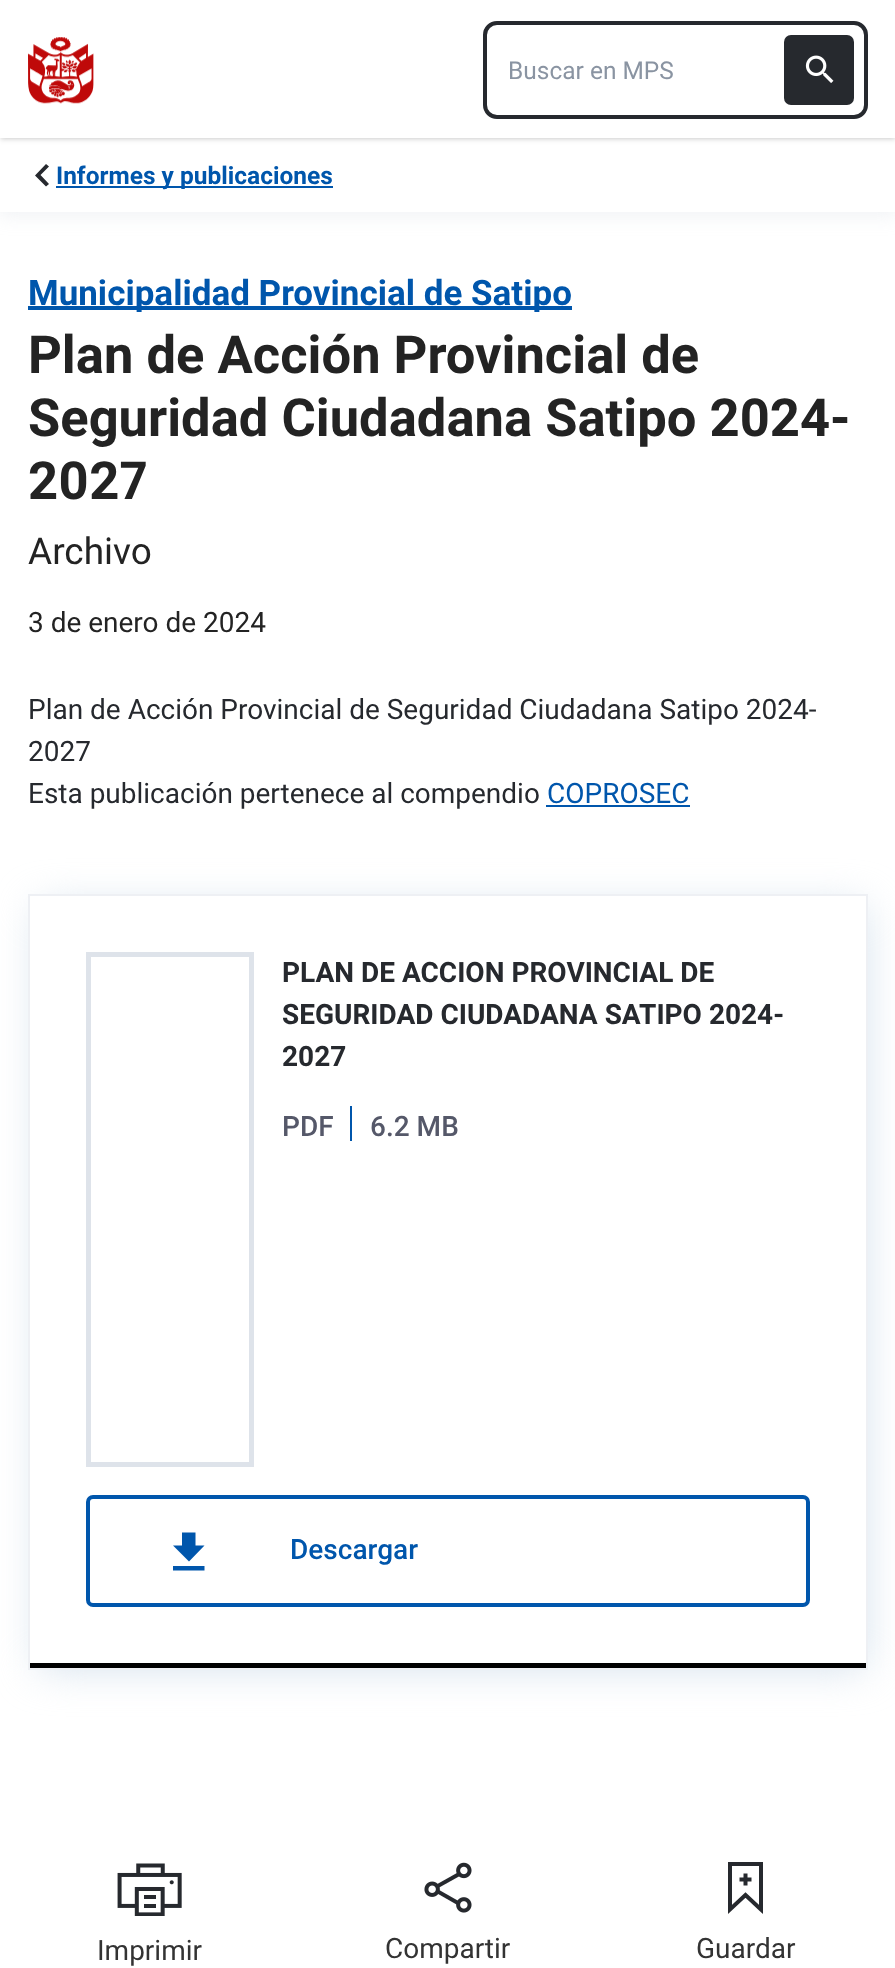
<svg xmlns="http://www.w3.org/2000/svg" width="895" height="1968">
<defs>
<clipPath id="clip1"><path d="M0 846h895v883h-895zm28 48h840v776h-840z" clip-rule="evenodd"/></clipPath>
</defs>
<rect width="100%" height="100%" fill="#fff"/>
<rect x="-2" y="138" width="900" height="77" fill="#bec7d340" filter="blur(9.5px)"/>
<rect y="138" width="895" height="74" fill="#fff"/>
<rect x="2" y="4" width="892" height="134" fill="#0000001a" filter="blur(2px)"/>
<rect y="2" width="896" height="138" fill="#0000001a" filter="blur(2.5px)"/>
<rect width="895" height="138" fill="#fff"/>
<image x="28" y="37" width="66" height="67" href="media/1.png"/>
<rect x="485" y="23" width="381" height="94" rx="12" fill="none" stroke="#26292e" stroke-width="4"/>
<text x="508" y="79" style="font-family:Roboto;font-size:24.5px;fill:#8a94a2">Buscar en MPS</text>
<rect x="784" y="35" width="70" height="70" rx="7" fill="#26292e"/>
<image x="805" y="55" width="29" height="28" href="media/2.png"/>
<path d="M49 166.5l-8.5 8.5l8.5 9l-3 2.5l-11-11l11-11.5z" fill="#26292e"/>
<rect x="56" y="186" width="277" height="2" fill="#0056ac"/>
<text x="56" y="184" style="font-family:Roboto;font-size:24.5px;font-weight:bold;fill:#0056ac">Informes y publicaciones</text>
<rect x="28" y="306" width="544" height="4" fill="#0056ac"/>
<text x="28" y="305" style="font-family:Roboto;font-size:35px;font-weight:bold;fill:#0056ac">Municipalidad Provincial de Satipo</text>
<text x="28" y="373" style="font-family:Roboto;font-size:52.5px;font-weight:bold;fill:#232323">Plan de Acción Provincial de</text>
<text x="28" y="436" style="font-family:Roboto;font-size:52.5px;font-weight:bold;fill:#232323">Seguridad Ciudadana Satipo 2024-</text>
<text x="28" y="499" style="font-family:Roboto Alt;font-size:52.5px;font-weight:bold;fill:#232323">2027</text>
<text x="28" y="564" style="font-family:Roboto;font-size:37px;fill:#232323">Archivo</text>
<text x="28" y="632" style="font-family:Roboto;font-size:28px;fill:#232323">3 de enero de 2024</text>
<text x="28" y="719" style="font-family:Roboto;font-size:28px;fill:#26292e">Plan de Acción Provincial de Seguridad Ciudadana Satipo 2024-</text>
<text x="28" y="761" style="font-family:Roboto;font-size:28px;fill:#26292e">2027</text>
<text x="28" y="803" style="font-family:Roboto;font-size:28px;fill:#26292e">Esta publicación pertenece al compendio</text>
<text x="547" y="803" style="font-family:Roboto;font-size:28px;fill:#0056ac">COPROSEC</text>
<rect x="546" y="805" width="144" height="2" fill="#0056ac"/>
<g clip-path="url(#clip1)">
<rect x="39" y="907" width="826" height="761" fill="#d3e0ec" filter="blur(20px)"/>
</g>
<rect x="29" y="895" width="838" height="774" fill="none" stroke="#eef0f4" stroke-width="2"/>
<rect x="30" y="1663" width="836" height="5" fill="#000"/>
<rect x="88.5" y="954.5" width="163" height="510" fill="none" stroke="#dee3ea" stroke-width="5"/>
<text x="282" y="982" style="font-family:Roboto;font-size:28px;font-weight:bold;fill:#26292e">PLAN DE ACCION PROVINCIAL DE</text>
<text x="282" y="1024" style="font-family:Roboto;font-size:28px;font-weight:bold;fill:#26292e">SEGURIDAD CIUDADANA SATIPO 2024-</text>
<text x="282" y="1066" style="font-family:Roboto;font-size:28px;font-weight:bold;fill:#26292e">2027</text>
<text x="282" y="1136" style="font-family:Roboto;font-size:28px;font-weight:500;fill:#555869">PDF</text>
<rect x="350" y="1106" width="2" height="35" fill="#0056ac"/>
<text x="370" y="1136" style="font-family:Roboto;font-size:28px;font-weight:500;fill:#555869">6.2 MB</text>
<rect x="88" y="1497" width="720" height="108" rx="5" fill="none" stroke="#0056ac" stroke-width="4"/>
<path d="M204.5 1545.5h-9v-13h-13.5v13h-9l16 16zm-31.5 20.5v4.5h31.5v-4.5z" fill="#0056ac"/>
<text x="290" y="1559" style="font-family:Roboto;font-size:28px;font-weight:500;fill:#0056ac">Descargar</text>
<image x="117" y="1863" width="65" height="53" href="media/3.png"/>
<text x="97" y="1960" style="font-family:Roboto;font-size:28px;fill:#333">Imprimir</text>
<image x="424" y="1862" width="48" height="51" href="media/4.png"/>
<text x="385" y="1958" style="font-family:Roboto;font-size:28px;fill:#333">Compartir</text>
<path d="M761 1909.5l-15.5-14.5l-15.5 14.5v-45.5h31zm-15.5-36v12m-6-6h12" fill="none" stroke="#26292e" stroke-width="4"/>
<text x="696" y="1958" style="font-family:Roboto;font-size:28px;fill:#333">Guardar</text>
</svg>
